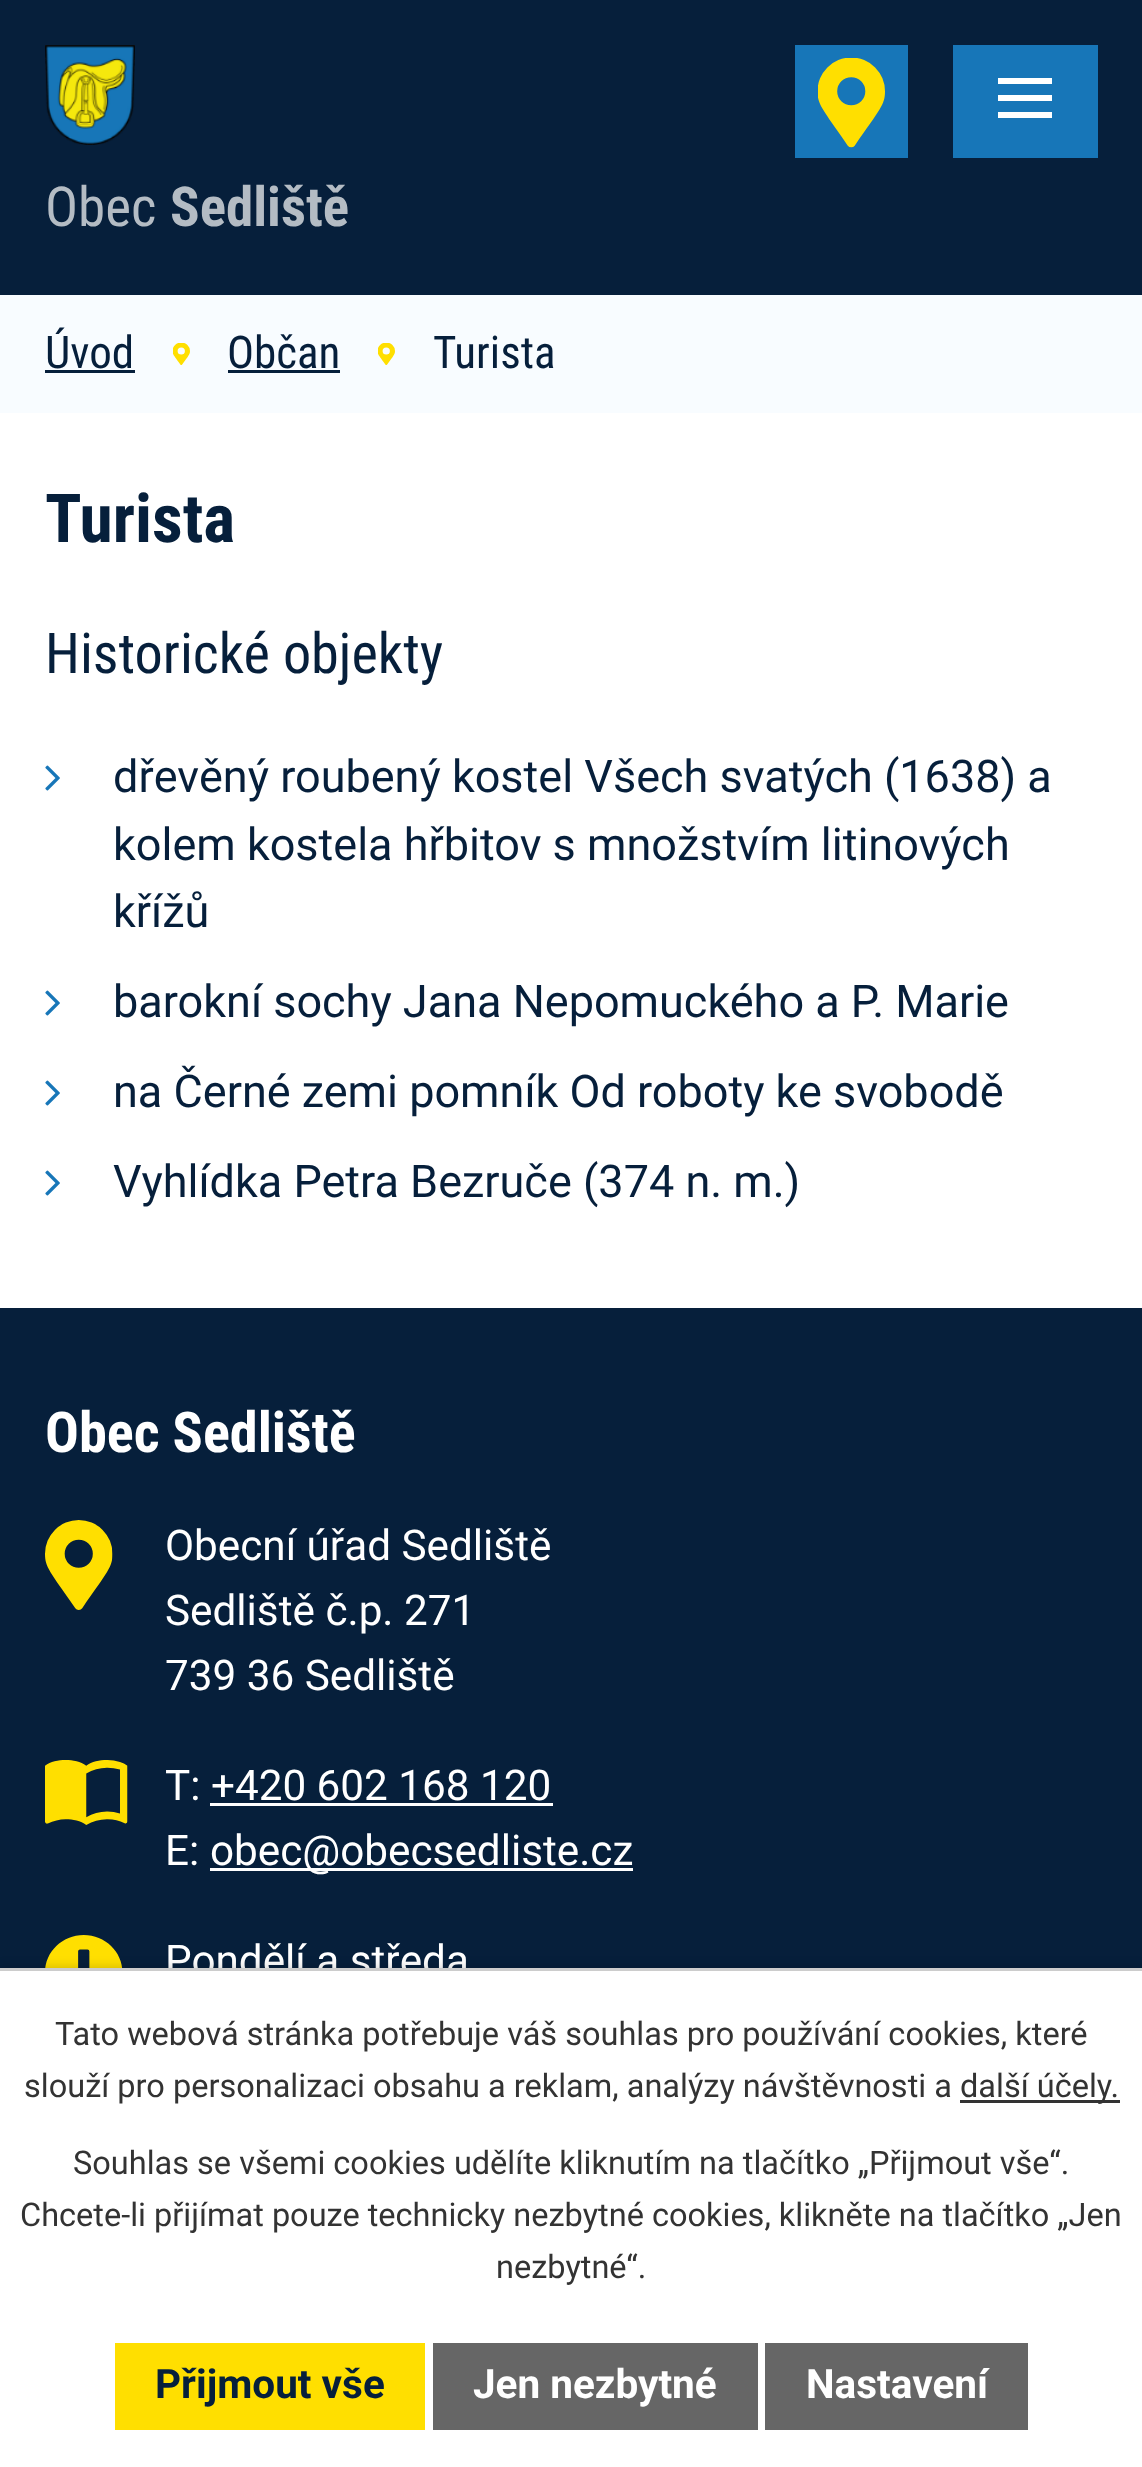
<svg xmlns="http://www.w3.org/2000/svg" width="1142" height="2467">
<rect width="100%" height="100%" fill="#fff"/>
<rect width="1142" height="295" fill="#061f3b"/>
<rect x="953" y="45" width="145" height="113" fill="#1776b8"/>
<path d="M998 118v-6h54v6zm0-40h54v6h-54zm0 23v-6h54v6z" fill="#fff"/>
<rect x="795" y="45" width="113" height="113" fill="#1776b8"/>
<image x="818" y="58" width="67" height="90" href="media/1.png"/>
<image x="45" y="45" width="90" height="100" href="media/2.png"/>
<text x="45" y="226" style="font-family:Roboto Condensed;font-size:55px;fill:#b4bcc4">Obec</text>
<text x="170" y="226" style="font-family:Roboto Condensed;font-size:55px;font-weight:bold;fill:#b4bcc4">Sedliště</text>
<rect y="295" width="1142" height="118" fill="#f8fcff"/>
<text x="45" y="368" style="font-family:Roboto Condensed;font-size:45px;fill:#061f3b">Úvod</text>
<rect x="45" y="370" width="90" height="3" fill="#061f3b"/>
<image x="173" y="343" width="17" height="22" href="media/3.png"/>
<text x="227" y="368" style="font-family:Roboto Condensed;font-size:45px;fill:#061f3b">Občan</text>
<rect x="228" y="370" width="112" height="3" fill="#061f3b"/>
<image x="378" y="343" width="17" height="22" href="media/3.png"/>
<text x="433" y="368" style="font-family:Roboto Condensed;font-size:45px;fill:#061f3b">Turista</text>
<text x="45" y="542" style="font-family:Roboto Condensed;font-size:67.5px;font-weight:bold;fill:#061f3b">Turista</text>
<text x="45" y="673" style="font-family:Roboto Condensed;font-size:56.25px;fill:#061f3b">Historické objekty</text>
<image x="45" y="765" width="15" height="26" href="media/4.png"/>
<text x="113" y="792" style="font-family:Roboto;font-size:45px;fill:#061f3b">dřevěný roubený kostel Všech svatých (1638) a</text>
<text x="113" y="860" style="font-family:Roboto;font-size:45px;fill:#061f3b">kolem kostela hřbitov s množstvím litinových</text>
<text x="113" y="927" style="font-family:Roboto;font-size:45px;fill:#061f3b">křížů</text>
<image x="45" y="990" width="15" height="26" href="media/4.png"/>
<text x="113" y="1017" style="font-family:Roboto;font-size:45px;fill:#061f3b">barokní sochy Jana Nepomuckého a P. Marie</text>
<image x="45" y="1080" width="15" height="26" href="media/4.png"/>
<text x="113" y="1107" style="font-family:Roboto;font-size:45px;fill:#061f3b">na Černé zemi pomník Od roboty ke svobodě</text>
<image x="45" y="1170" width="15" height="26" href="media/4.png"/>
<text x="113" y="1197" style="font-family:Roboto;font-size:45px;fill:#061f3b">Vyhlídka Petra Bezruče (374 n. m.)</text>
<rect y="1308" width="1142" height="660" fill="#061f3b"/>
<text x="45" y="1452" style="font-family:Roboto Condensed;font-size:56.25px;font-weight:bold;fill:#fff">Obec Sedliště</text>
<image x="45" y="1520" width="68" height="90" href="media/5.png"/>
<text x="165" y="1560" style="font-family:Roboto;font-size:42.25px;fill:#fff">Obecní úřad Sedliště</text>
<text x="165" y="1625" style="font-family:Roboto;font-size:42.25px;fill:#fff">Sedliště č.p. 271</text>
<text x="165" y="1690" style="font-family:Roboto;font-size:42.25px;fill:#fff">739 36 Sedliště</text>
<image x="45" y="1760" width="83" height="65" href="media/6.png"/>
<text x="165" y="1800" style="font-family:Roboto;font-size:42.25px;fill:#fff">T: +420 602 168 120</text>
<rect x="210" y="1803" width="343" height="3" fill="#fff"/>
<text x="165" y="1865" style="font-family:Roboto;font-size:42.25px;fill:#fff">E:</text>
<rect x="210" y="1868" width="423" height="3" fill="#fff"/>
<text x="210" y="1865" style="font-family:Roboto;font-size:42.25px;fill:#fff">obec@obecsedliste.cz</text>
<image x="45" y="1935" width="77" height="33" href="media/7.png"/>
<text x="165" y="1975" style="font-family:Roboto;font-size:42.25px;fill:#fff">Pondělí a středa</text>
<rect y="1968" width="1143" height="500" fill="#00000033" filter="blur(6px)"/>
<rect y="1971" width="1142" height="496" fill="#fff"/>
<rect y="1968" width="1142" height="3" fill="#ccc"/>
<text x="55" y="2045" style="font-family:Roboto;font-size:32.5px;fill:#333">Tato webová stránka potřebuje váš souhlas pro používání cookies, které</text>
<text x="24" y="2097" style="font-family:Roboto;font-size:32.5px;fill:#333">slouží pro personalizaci obsahu a reklam, analýzy návštěvnosti a</text>
<rect x="960" y="2100" width="160" height="3" fill="#333"/>
<text x="960" y="2097" style="font-family:Roboto;font-size:32.5px;fill:#333">další účely.</text>
<text x="73" y="2174" style="font-family:Roboto;font-size:32.5px;fill:#333">Souhlas se všemi cookies udělíte kliknutím na tlačítko „Přijmout vše“.</text>
<text x="20" y="2226" style="font-family:Roboto;font-size:32.5px;fill:#333">Chcete-li přijímat pouze technicky nezbytné cookies, klikněte na tlačítko „Jen</text>
<text x="496" y="2278" style="font-family:Roboto;font-size:32.5px;fill:#333">nezbytné“.</text>
<rect x="115" y="2343" width="310" height="87" fill="#ffdf00"/>
<text x="155" y="2398" style="font-family:Roboto;font-size:40.5px;font-weight:bold;fill:#061f3b">Přijmout vše</text>
<rect x="433" y="2343" width="325" height="87" fill="#666"/>
<text x="473" y="2398" style="font-family:Roboto;font-size:40.5px;font-weight:bold;fill:#fff">Jen nezbytné</text>
<rect x="765" y="2343" width="263" height="87" fill="#666"/>
<text x="806" y="2398" style="font-family:Roboto;font-size:40.5px;font-weight:bold;fill:#fff">Nastavení</text>
</svg>
